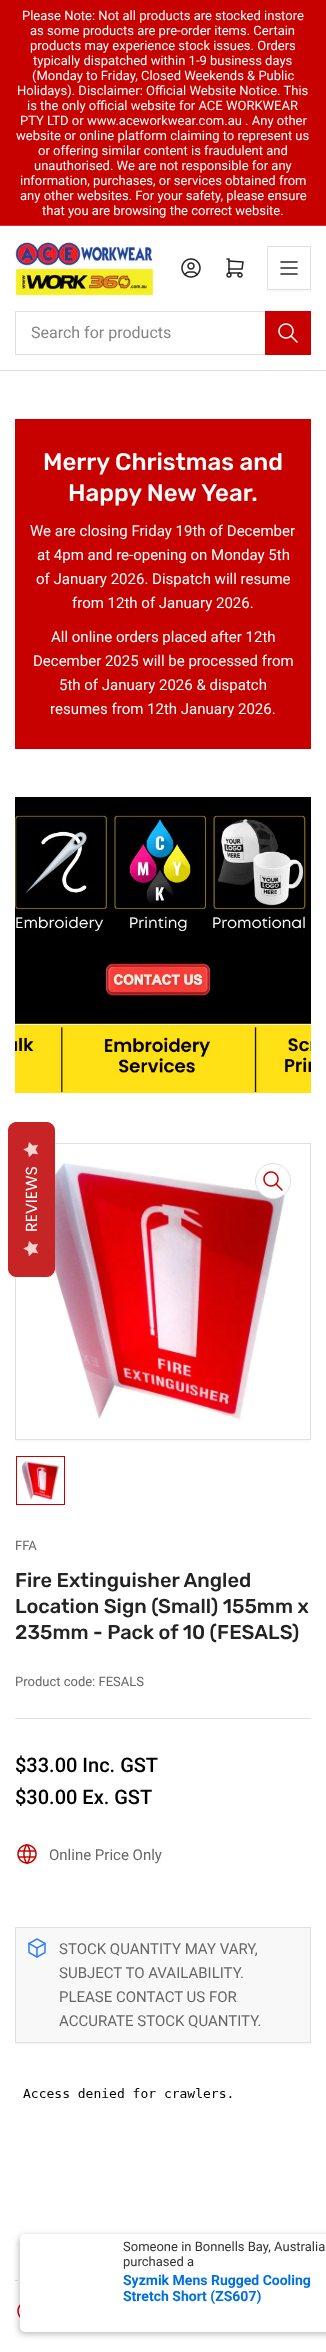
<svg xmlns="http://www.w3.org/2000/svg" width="326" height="2352">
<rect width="100%" height="100%" fill="#fff"/>
<rect width="326" height="225" fill="#c70000"/>
<rect y="225" width="326" height="1" fill="#d23333"/>
<text x="22" y="20" style="font-family:Roboto;font-size:13px;fill:#fff">Please Note: Not all products are stocked instore</text>
<text x="30" y="35" style="font-family:Roboto;font-size:13px;fill:#fff">as some products are pre-order items. Certain</text>
<text x="30" y="50" style="font-family:Roboto;font-size:13px;fill:#fff">products may experience stock issues. Orders</text>
<text x="33" y="65" style="font-family:Roboto;font-size:13px;fill:#fff">typically dispatched within 1-9 business days</text>
<text x="32" y="80" style="font-family:Roboto;font-size:13px;fill:#fff">(Monday to Friday, Closed Weekends &amp; Public</text>
<text x="17" y="95" style="font-family:Roboto;font-size:13px;fill:#fff">Holidays). Disclaimer: Official Website Notice. This</text>
<text x="27" y="110" style="font-family:Roboto;font-size:13px;fill:#fff">is the only official website for ACE WORKWEAR</text>
<text x="20" y="125" style="font-family:Roboto;font-size:13px;fill:#fff">PTY LTD or www.aceworkwear.com.au . Any other</text>
<text x="16" y="140" style="font-family:Roboto;font-size:13px;fill:#fff">website or online platform claiming to represent us</text>
<text x="38" y="155" style="font-family:Roboto;font-size:13px;fill:#fff">or offering similar content is fraudulent and</text>
<text x="34" y="170" style="font-family:Roboto;font-size:13px;fill:#fff">unauthorised. We are not responsible for any</text>
<text x="20" y="185" style="font-family:Roboto;font-size:13px;fill:#fff">information, purchases, or services obtained from</text>
<text x="20" y="200" style="font-family:Roboto;font-size:13px;fill:#fff">any other websites. For your safety, please ensure</text>
<text x="42" y="215" style="font-family:Roboto;font-size:13px;fill:#fff">that you are browsing the correct website.</text>
<rect y="370" width="326" height="1" fill="#dfdfdf"/>
<image x="15" y="242" width="139" height="54" href="media/1.png"/>
<image x="181" y="258" width="20" height="20" href="media/2.png"/>
<image x="226" y="258" width="18" height="20" href="media/3.png"/>
<rect x="267" y="290" width="44" height="2" fill="#f9f9f9"/>
<rect x="267.5" y="246.5" width="43" height="43" fill="none" stroke="#dfdfdf"/>
<image x="280" y="261" width="18" height="14" href="media/4.png"/>
<rect x="15.5" y="311.5" width="295" height="43" fill="none" stroke="#dfdfdf"/>
<text x="31" y="338" style="font-family:Roboto;font-size:16px;fill:#858585">Search for products</text>
<rect x="265.5" y="311.5" width="45" height="43" fill="none" stroke="#c70000"/>
<rect x="266" y="312" width="44" height="42" fill="#c70000"/>
<image x="278" y="323" width="20" height="20" href="media/5.png"/>
<rect x="15" y="419" width="296" height="330" fill="#c70000"/>
<text x="43" y="470" style="font-family:Rubik;font-size:24px;font-weight:500;fill:#fff">Merry Christmas and</text>
<text x="68" y="501" style="font-family:Rubik;font-size:24px;font-weight:500;fill:#fff">Happy New Year.</text>
<text x="30" y="536" style="font-family:Roboto;font-size:15px;fill:#fff">We are closing Friday 19th of December</text>
<text x="37" y="560" style="font-family:Roboto;font-size:15px;fill:#fff">at 4pm and re-opening on Monday 5th</text>
<text x="36" y="584" style="font-family:Roboto;font-size:15px;fill:#fff">of January 2026. Dispatch will resume</text>
<text x="72" y="608" style="font-family:Roboto;font-size:15px;fill:#fff">from 12th of January 2026.</text>
<text x="51" y="642" style="font-family:Roboto;font-size:15px;fill:#fff">All online orders placed after 12th</text>
<text x="33" y="666" style="font-family:Roboto;font-size:15px;fill:#fff">December 2025 will be processed from</text>
<text x="59" y="690" style="font-family:Roboto;font-size:15px;fill:#fff">5th of January 2026 &amp; dispatch</text>
<text x="50" y="714" style="font-family:Roboto;font-size:15px;fill:#fff">resumes from 12th January 2026.</text>
<rect x="15.5" y="1143.5" width="295" height="296" fill="none" stroke="#dfdfdf"/>
<image x="40" y="1163" width="245" height="256" href="media/8.png"/>
<path d="M8 1269v-139c0-4 4-8 8-8h31c4 0 8 4 8 8v139c0 4-4 8-8 8h-31c-4 0-8-4-8-8z" fill="#c72525"/>
<image x="23" y="1142" width="15" height="15" href="media/6.png"/>
<text x="37" y="1232" transform="rotate(-90 37 1232)" style="font-family:Poppins;font-size:16px;fill:#fff">REVIEWS</text>
<image x="23" y="1241" width="15" height="15" href="media/6.png"/>
<image x="15" y="797" width="296" height="296" href="media/7.png"/>
<rect x="15" y="1440" width="296" height="2" fill="#f9f9f9"/>
<circle cx="273" cy="1181" r="17.5" fill="#fff" stroke="#dfdfdf"/>
<image x="263" y="1171" width="20" height="20" href="media/9.png"/>
<rect x="16" y="1505" width="49" height="1" fill="#f9f9f9"/>
<rect x="16.5" y="1456.5" width="48" height="48" fill="none" stroke="#c70000"/>
<image x="21" y="1461" width="39" height="39" href="media/10.png"/>
<rect x="15" y="1718" width="296" height="1" fill="#dfdfdf"/>
<text x="15" y="1550" style="font-family:Roboto;font-size:13px;fill:#676767">FFA</text>
<text x="15" y="1587" style="font-family:Rubik;font-size:20px;font-weight:500;fill:#232323">Fire Extinguisher Angled</text>
<text x="15" y="1613" style="font-family:Rubik;font-size:20px;font-weight:500;fill:#232323">Location Sign (Small) 155mm x</text>
<text x="15" y="1639" style="font-family:Rubik;font-size:20px;font-weight:500;fill:#232323">235mm - Pack of 10 (FESALS)</text>
<text x="15" y="1686" style="font-family:Roboto;font-size:13px;fill:#676767">Product code: FESALS</text>
<text x="15" y="1772" style="font-family:Roboto;font-size:20px;font-weight:500;fill:#000">$33.00 Inc. GST</text>
<text x="15" y="1804" style="font-family:Roboto;font-size:20px;font-weight:500;fill:#000">$30.00 Ex. GST</text>
<image x="17" y="1844" width="20" height="20" href="media/11.png"/>
<text x="49" y="1860" style="font-family:Roboto;font-size:15px;fill:#676767">Online Price Only</text>
<rect x="15" y="2043" width="296" height="2" fill="#f9f9f9"/>
<rect x="15.5" y="1927.5" width="295" height="115" fill="#f8f8f8" stroke="#dfdfdf"/>
<image x="28" y="1938" width="18" height="20" href="media/12.png"/>
<text x="59" y="1954" style="font-family:Roboto;font-size:15px;fill:#676767">STOCK QUANTITY MAY VARY,</text>
<text x="59" y="1978" style="font-family:Roboto;font-size:15px;fill:#676767">SUBJECT TO AVAILABILITY.</text>
<text x="59" y="2002" style="font-family:Roboto;font-size:15px;fill:#676767">PLEASE CONTACT US FOR</text>
<text x="59" y="2026" style="font-family:Roboto;font-size:15px;fill:#676767">ACCURATE STOCK QUANTITY.</text>
<image x="23" y="2088" width="209" height="10" href="media/13.png"/>
<path d="M15 2280.5h296" fill="none" stroke="#dfdfdf" stroke-dasharray="3 1.97"/>
<image x="17" y="2304" width="3" height="14" href="media/14.png"/>
<rect x="19" y="2236" width="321" height="98" rx="5" fill="#1e20284d" filter="blur(3px)"/>
<rect x="20" y="2234" width="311" height="98" rx="5" fill="#fff"/>
<text x="123" y="2251" style="font-family:Roboto;font-size:13px;fill:#333">Someone in Bonnells Bay, Australia</text>
<text x="123" y="2266" style="font-family:Roboto;font-size:13px;fill:#333">purchased a</text>
<text x="123" y="2285" style="font-family:Roboto;font-size:14px;font-weight:bold;fill:#0070e0">Syzmik Mens Rugged Cooling</text>
<text x="123" y="2301" style="font-family:Roboto;font-size:14px;font-weight:bold;fill:#0070e0">Stretch Short (ZS607)</text>
</svg>
